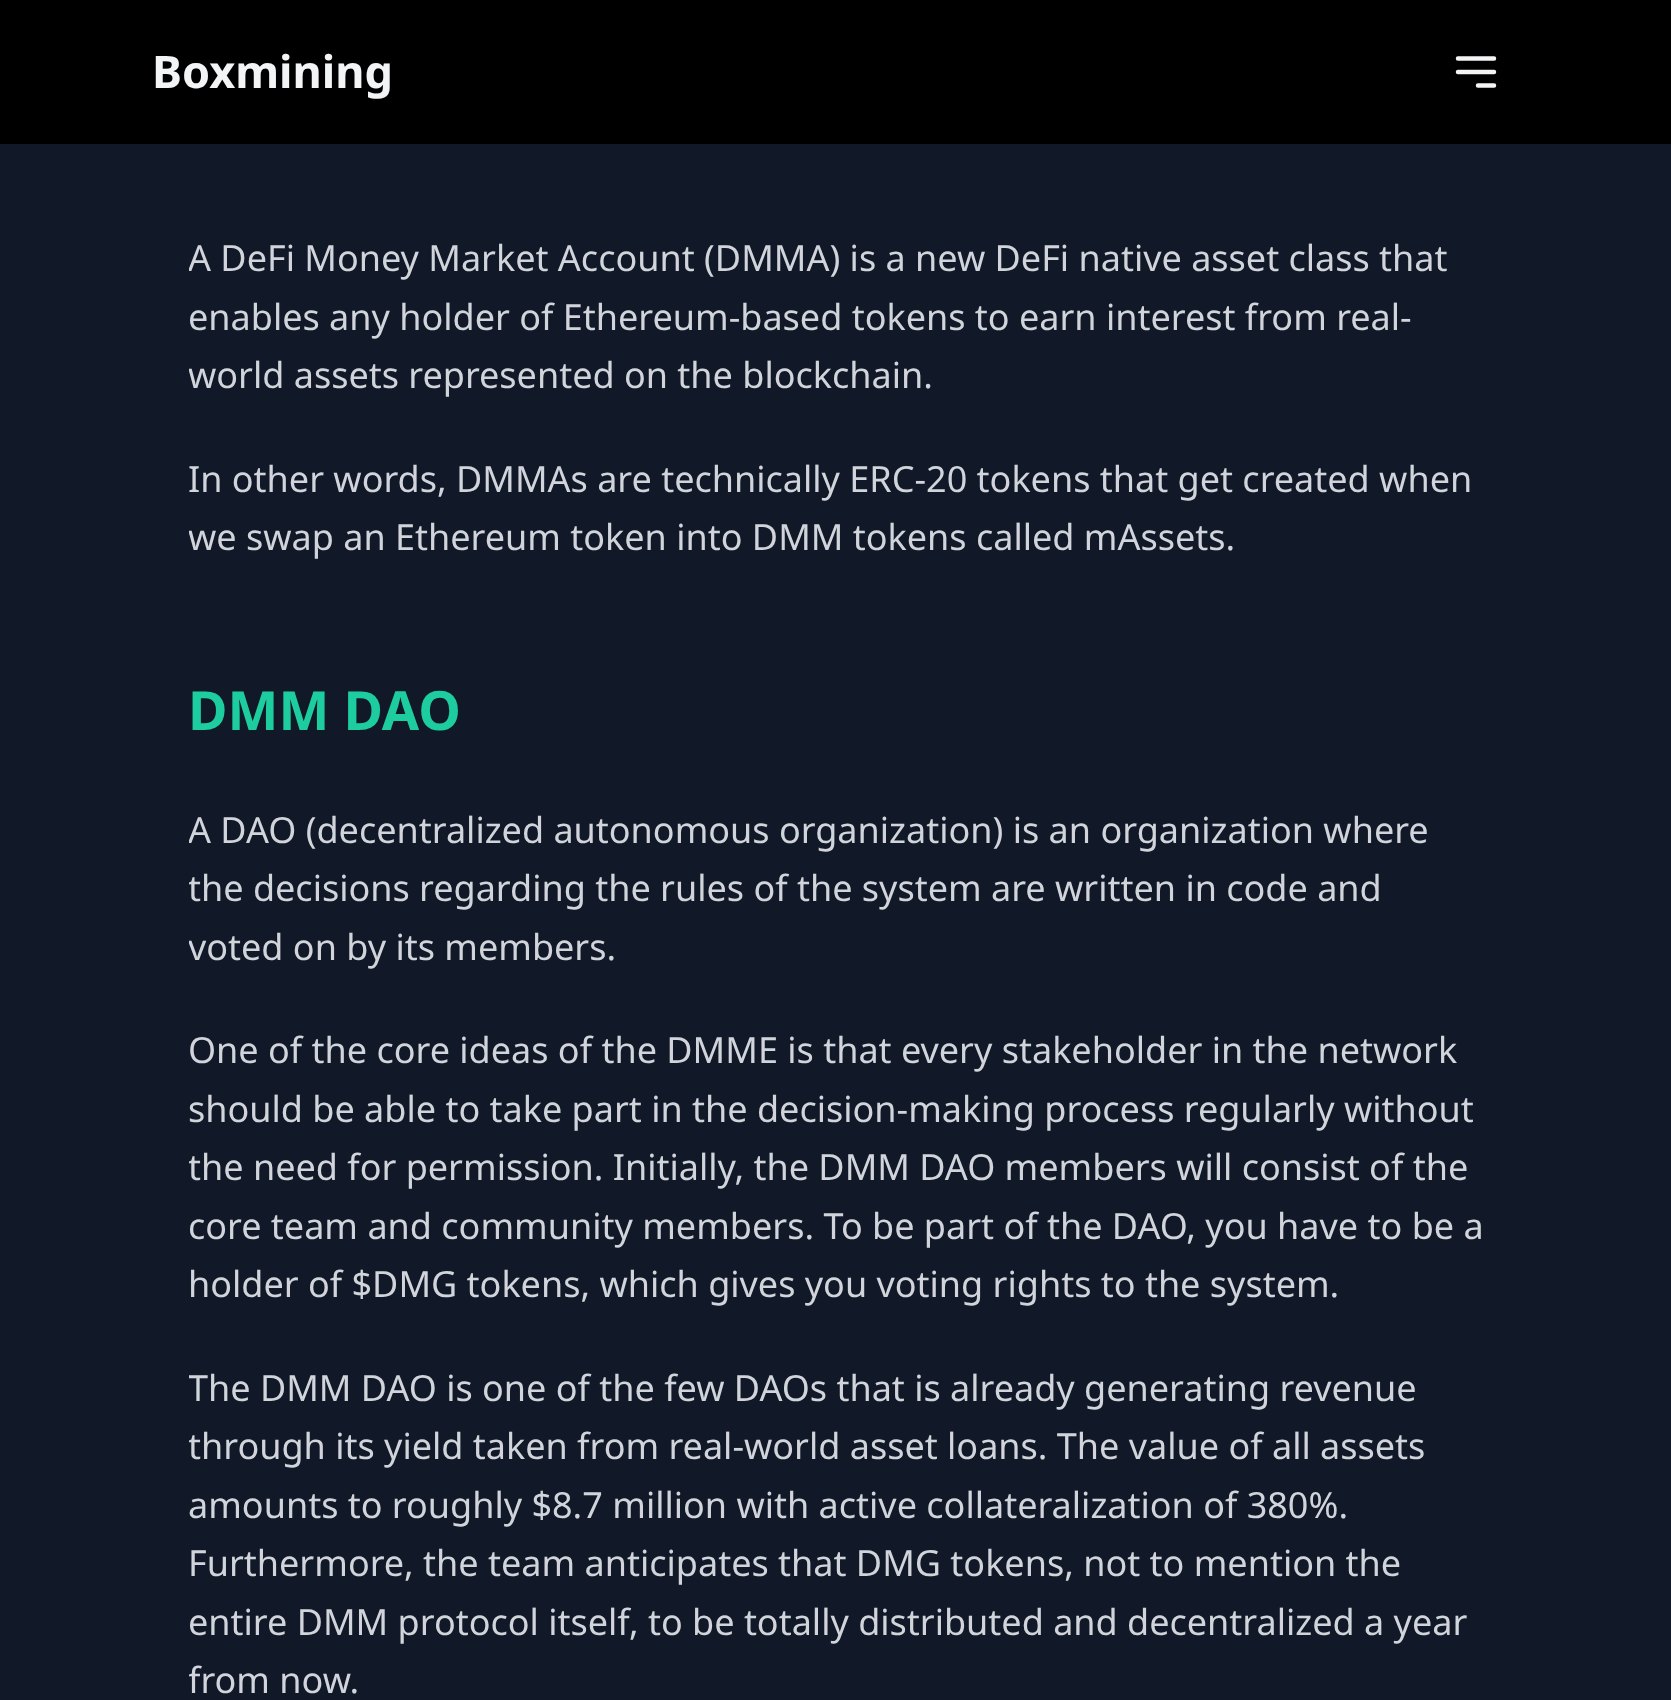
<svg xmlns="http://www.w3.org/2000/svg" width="1671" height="1700">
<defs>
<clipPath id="clip1"><rect x="189" width="1296" height="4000"/></clipPath>
</defs>
<rect width="100%" height="100%" fill="#111827"/>
<rect width="1671" height="144" fill="#000"/>
<text x="152" y="88" style="font-family:Noto Sans;font-size:45px;font-weight:bold;fill:#f3f4f6">Boxmining</text>
<path d="M1458 58.5h36m-36 13.5h36m-16 13.5h16" fill="none" stroke="#f3f4f6" stroke-width="4.5" stroke-linecap="round" stroke-linejoin="round"/>
<g clip-path="url(#clip1)">
<text x="188" y="271" style="font-family:Noto Sans;font-size:36px;fill:#d1d5db">A DeFi Money Market Account (DMMA) is a new DeFi native asset class that</text>
</g>
<text x="188" y="330" style="font-family:Noto Sans;font-size:36px;fill:#d1d5db">enables any holder of Ethereum-based tokens to earn interest from real-</text>
<g clip-path="url(#clip1)">
<text x="188" y="388" style="font-family:Noto Sans;font-size:36px;fill:#d1d5db">world assets represented on the blockchain.</text>
</g>
<text x="188" y="492" style="font-family:Noto Sans;font-size:36px;fill:#d1d5db">In other words, DMMAs are technically ERC-20 tokens that get created when</text>
<g clip-path="url(#clip1)">
<text x="188" y="550" style="font-family:Noto Sans;font-size:36px;fill:#d1d5db">we swap an Ethereum token into DMM tokens called mAssets.</text>
</g>
<text x="188" y="730" style="font-family:Noto Sans;font-size:54px;font-weight:bold;fill:#1dcd9f">DMM DAO</text>
<g clip-path="url(#clip1)">
<text x="188" y="843" style="font-family:Noto Sans;font-size:36px;fill:#d1d5db">A DAO (decentralized autonomous organization) is an organization where</text>
<text x="188" y="901" style="font-family:Noto Sans;font-size:36px;fill:#d1d5db">the decisions regarding the rules of the system are written in code and</text>
<text x="188" y="960" style="font-family:Noto Sans;font-size:36px;fill:#d1d5db">voted on by its members.</text>
</g>
<text x="188" y="1063" style="font-family:Noto Sans;font-size:36px;fill:#d1d5db">One of the core ideas of the DMME is that every stakeholder in the network</text>
<text x="188" y="1122" style="font-family:Noto Sans;font-size:36px;fill:#d1d5db">should be able to take part in the decision-making process regularly without</text>
<g clip-path="url(#clip1)">
<text x="188" y="1180" style="font-family:Noto Sans;font-size:36px;fill:#d1d5db">the need for permission. Initially, the DMM DAO members will consist of the</text>
</g>
<text x="188" y="1239" style="font-family:Noto Sans;font-size:36px;fill:#d1d5db">core team and community members. To be part of the DAO, you have to be a</text>
<text x="188" y="1297" style="font-family:Noto Sans;font-size:36px;fill:#d1d5db">holder of $DMG tokens, which gives you voting rights to the system.</text>
<g clip-path="url(#clip1)">
<text x="188" y="1401" style="font-family:Noto Sans;font-size:36px;fill:#d1d5db">The DMM DAO is one of the few DAOs that is already generating revenue</text>
<text x="188" y="1459" style="font-family:Noto Sans;font-size:36px;fill:#d1d5db">through its yield taken from real-world asset loans. The value of all assets</text>
</g>
<text x="188" y="1518" style="font-family:Noto Sans;font-size:36px;fill:#d1d5db">amounts to roughly $8.7 million with active collateralization of 380%.</text>
<text x="188" y="1576" style="font-family:Noto Sans;font-size:36px;fill:#d1d5db">Furthermore, the team anticipates that DMG tokens, not to mention the</text>
<text x="188" y="1635" style="font-family:Noto Sans;font-size:36px;fill:#d1d5db">entire DMM protocol itself, to be totally distributed and decentralized a year</text>
<g clip-path="url(#clip1)">
<text x="188" y="1693" style="font-family:Noto Sans;font-size:36px;fill:#d1d5db">from now.</text>
</g>
</svg>
